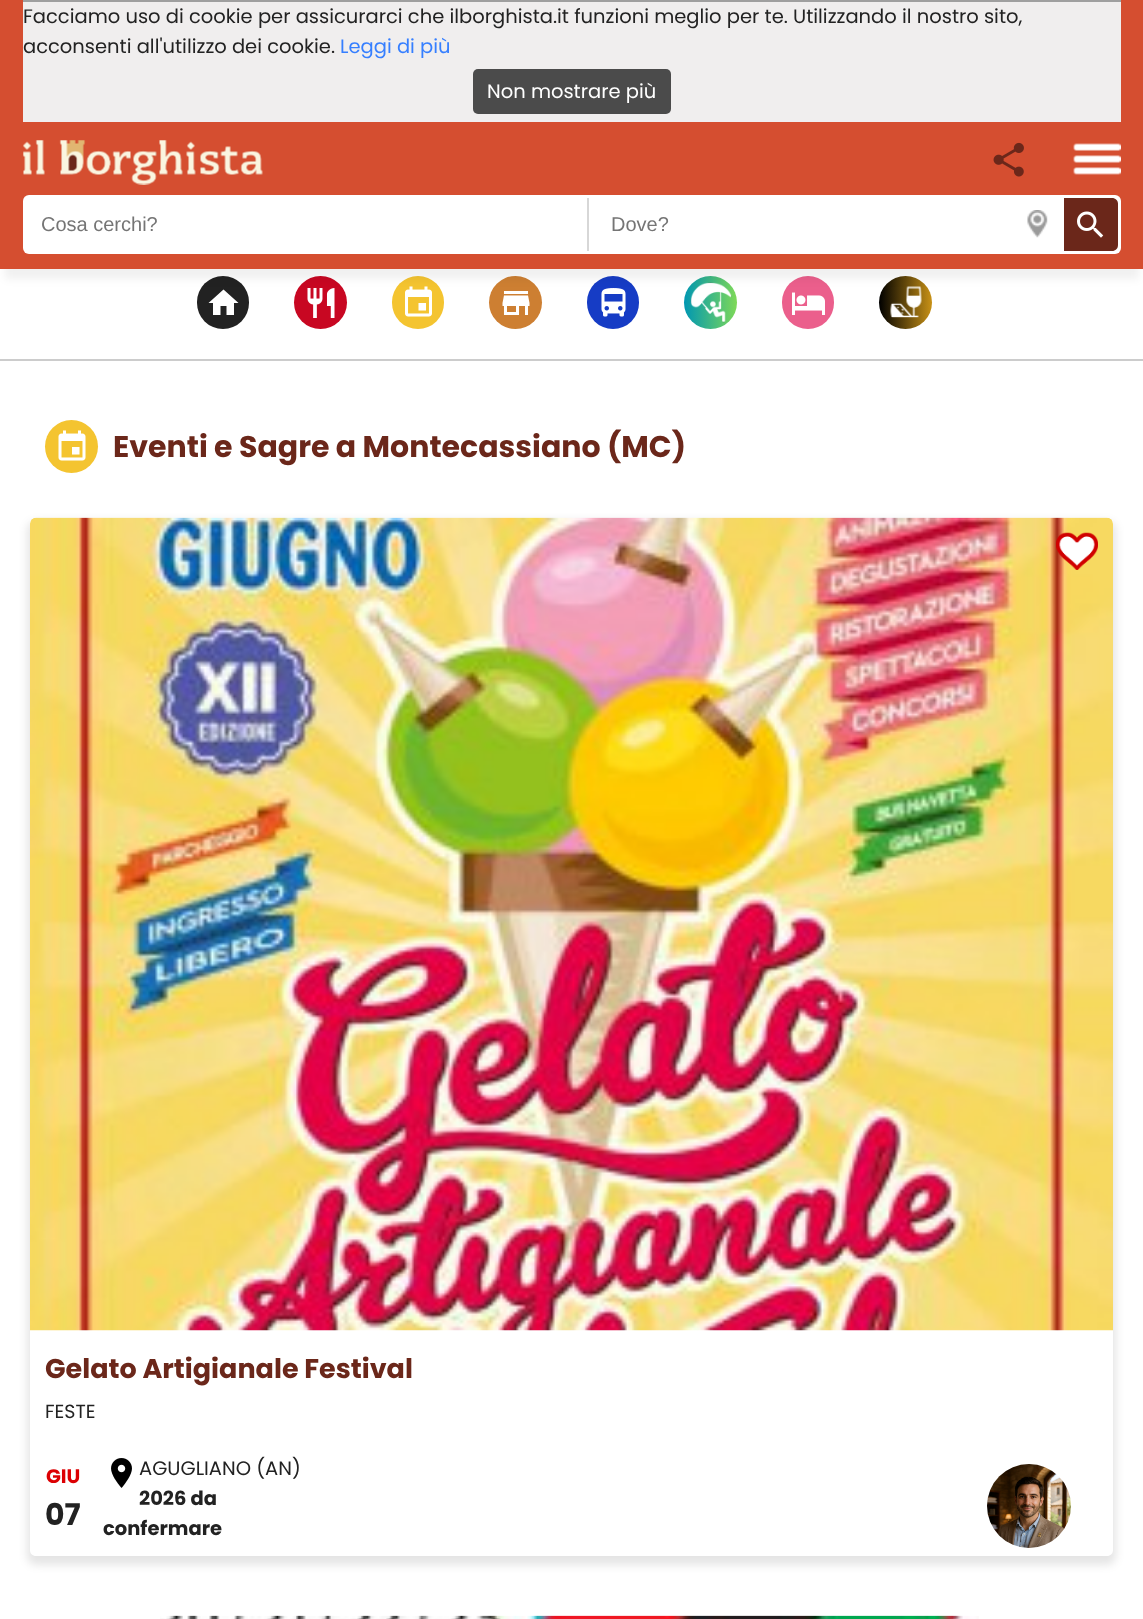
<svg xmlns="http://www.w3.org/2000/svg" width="1143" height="1619">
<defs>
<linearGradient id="g1" gradientUnits="userSpaceOnUse" x1="684" y1="302" x2="737" y2="302"><stop offset="0" stop-color="#0097b2"/><stop offset="1" stop-color="#7ed957"/></linearGradient>
<linearGradient id="g2" gradientUnits="userSpaceOnUse" x1="879" y1="302" x2="932" y2="302"><stop offset="0" stop-color="#000"/><stop offset="1" stop-color="#c89116"/></linearGradient>
<clipPath id="clip1"><path d="M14 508h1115v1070h-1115zm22 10h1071c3.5 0 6 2.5 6 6v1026c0 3.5-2.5 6-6 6h-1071c-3.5 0-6-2.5-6-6v-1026c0-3.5 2.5-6 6-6z" clip-rule="evenodd"/></clipPath>
</defs>
<rect width="100%" height="100%" fill="#fff"/>
<rect x="197" y="276" width="52" height="53" rx="26" fill="#222"/>
<path d="M220.5 315h-7.5v-12h-4.5l15-13.5l15 13.5h-4.5v12h-7.5v-9h-6z" fill="#fff"/>
<circle cx="320.5" cy="302.5" r="26.5" fill="#c80722"/>
<image x="307" y="288" width="28" height="30" href="media/6.png"/>
<rect x="392" y="276" width="52" height="53" rx="26" fill="#f4c430"/>
<image x="405" y="286" width="27" height="31" href="media/7.png"/>
<circle cx="515.5" cy="302.5" r="26.5" fill="#cd7f32"/>
<image x="502" y="291" width="28" height="24" href="media/8.png"/>
<rect x="587" y="276" width="52" height="53" rx="26" fill="#163cc5"/>
<image x="601" y="288" width="25" height="29" href="media/9.png"/>
<circle cx="710.5" cy="302.5" r="26.5" fill="url(#g1)"/>
<image x="690" y="282" width="42" height="41" href="media/10.png"/>
<rect x="782" y="276" width="52" height="53" rx="26" fill="#eb5f8c"/>
<image x="792" y="292" width="33" height="23" href="media/11.png"/>
<circle cx="905.5" cy="302.5" r="26.5" fill="url(#g2)"/>
<image x="890" y="286" width="32" height="32" href="media/12.png"/>
<rect x="5" y="20" width="1134" height="259" fill="#0000000f" filter="blur(4.5px)"/>
<rect width="1143" height="269" fill="#d54e30"/>
<rect x="23" y="2" width="1098" height="120" fill="#f0eeee"/>
<rect x="23" width="1098" height="2" fill="#9f9f9f"/>
<text x="23" y="23" style="font-family:Poppins;font-size:19.5px;fill:#222">Facciamo uso di cookie per assicurarci che ilborghista.it funzioni meglio per te. Utilizzando il nostro sito,</text>
<text x="23" y="53" style="font-family:Poppins;font-size:19.5px;fill:#222">acconsenti all'utilizzo dei cookie.</text>
<text x="340" y="53" style="font-family:Poppins;font-size:19.5px;fill:#367fff">Leggi di più</text>
<rect x="473" y="69" width="198" height="45" rx="5" fill="#4b4b4b"/>
<text x="487" y="98" style="font-family:Poppins;font-size:19.5px;fill:#fff">Non mostrare più</text>
<image x="23" y="140" width="240" height="45" href="media/1.png"/>
<image x="993" y="142" width="31" height="35" href="media/2.png"/>
<image x="1073" y="143" width="48" height="32" href="media/3.png"/>
<rect x="23" y="195" width="1098" height="59" rx="6" fill="#fff"/>
<rect x="587" y="198" width="2" height="53" fill="#d7d7d7"/>
<text x="41" y="231" style="font-family:Liberation Sans;font-size:20px;fill:#757575">Cosa cerchi?</text>
<text x="611" y="231" style="font-family:Liberation Sans;font-size:20px;fill:#757575">Dove?</text>
<image x="1027" y="210" width="21" height="28" href="media/4.png"/>
<path d="M1064 198h48c3.5 0 6 2.5 6 6v41c0 3.5-2.5 6-6 6h-48z" fill="#6b271a"/>
<image x="1077" y="211" width="27" height="27" href="media/5.png"/>
<rect y="359" width="1143" height="2" fill="#ccc"/>
<circle cx="71.5" cy="446.5" r="26.5" fill="#f4c430"/>
<image x="58" y="430" width="28" height="31" href="media/13.png"/>
<text x="113" y="457" style="font-family:Poppins;font-size:30px;font-weight:bold;fill:#6b271a">Eventi e Sagre a Montecassiano (MC)</text>
<g clip-path="url(#clip1)">
<rect x="27" y="521" width="1089" height="1044" rx="9" fill="#0000001a" filter="blur(4px)"/>
</g>
<image x="30" y="517" width="1083" height="814" href="media/14.png"/>
<image x="1056" y="532" width="42" height="38" href="media/15.png"/>
<text x="45" y="1378" style="font-family:Poppins;font-size:27px;font-weight:bold;fill:#6b271a">Gelato Artigianale Festival</text>
<text x="45" y="1418" style="font-family:Poppins;font-size:19px;fill:#222">FESTE</text>
<text x="46" y="1483" style="font-family:Poppins;font-size:19.5px;font-weight:bold;fill:#dc0003">GIU</text>
<text x="45" y="1525" style="font-family:Poppins;font-size:30px;font-weight:bold;fill:#222">07</text>
<image x="111" y="1458" width="21" height="30" href="media/16.png"/>
<text x="139" y="1475" style="font-family:Poppins;font-size:19.5px;fill:#222">AGUGLIANO (AN)</text>
<text x="139" y="1505" style="font-family:Poppins;font-size:19.5px;font-weight:bold;fill:#222">2026 da</text>
<text x="103" y="1535" style="font-family:Poppins;font-size:19.5px;font-weight:bold;fill:#222">confermare</text>
<image x="160" y="1615" width="819" height="4" href="media/17.png"/>
<image x="987" y="1464" width="84" height="84" href="media/18.png"/>
</svg>
